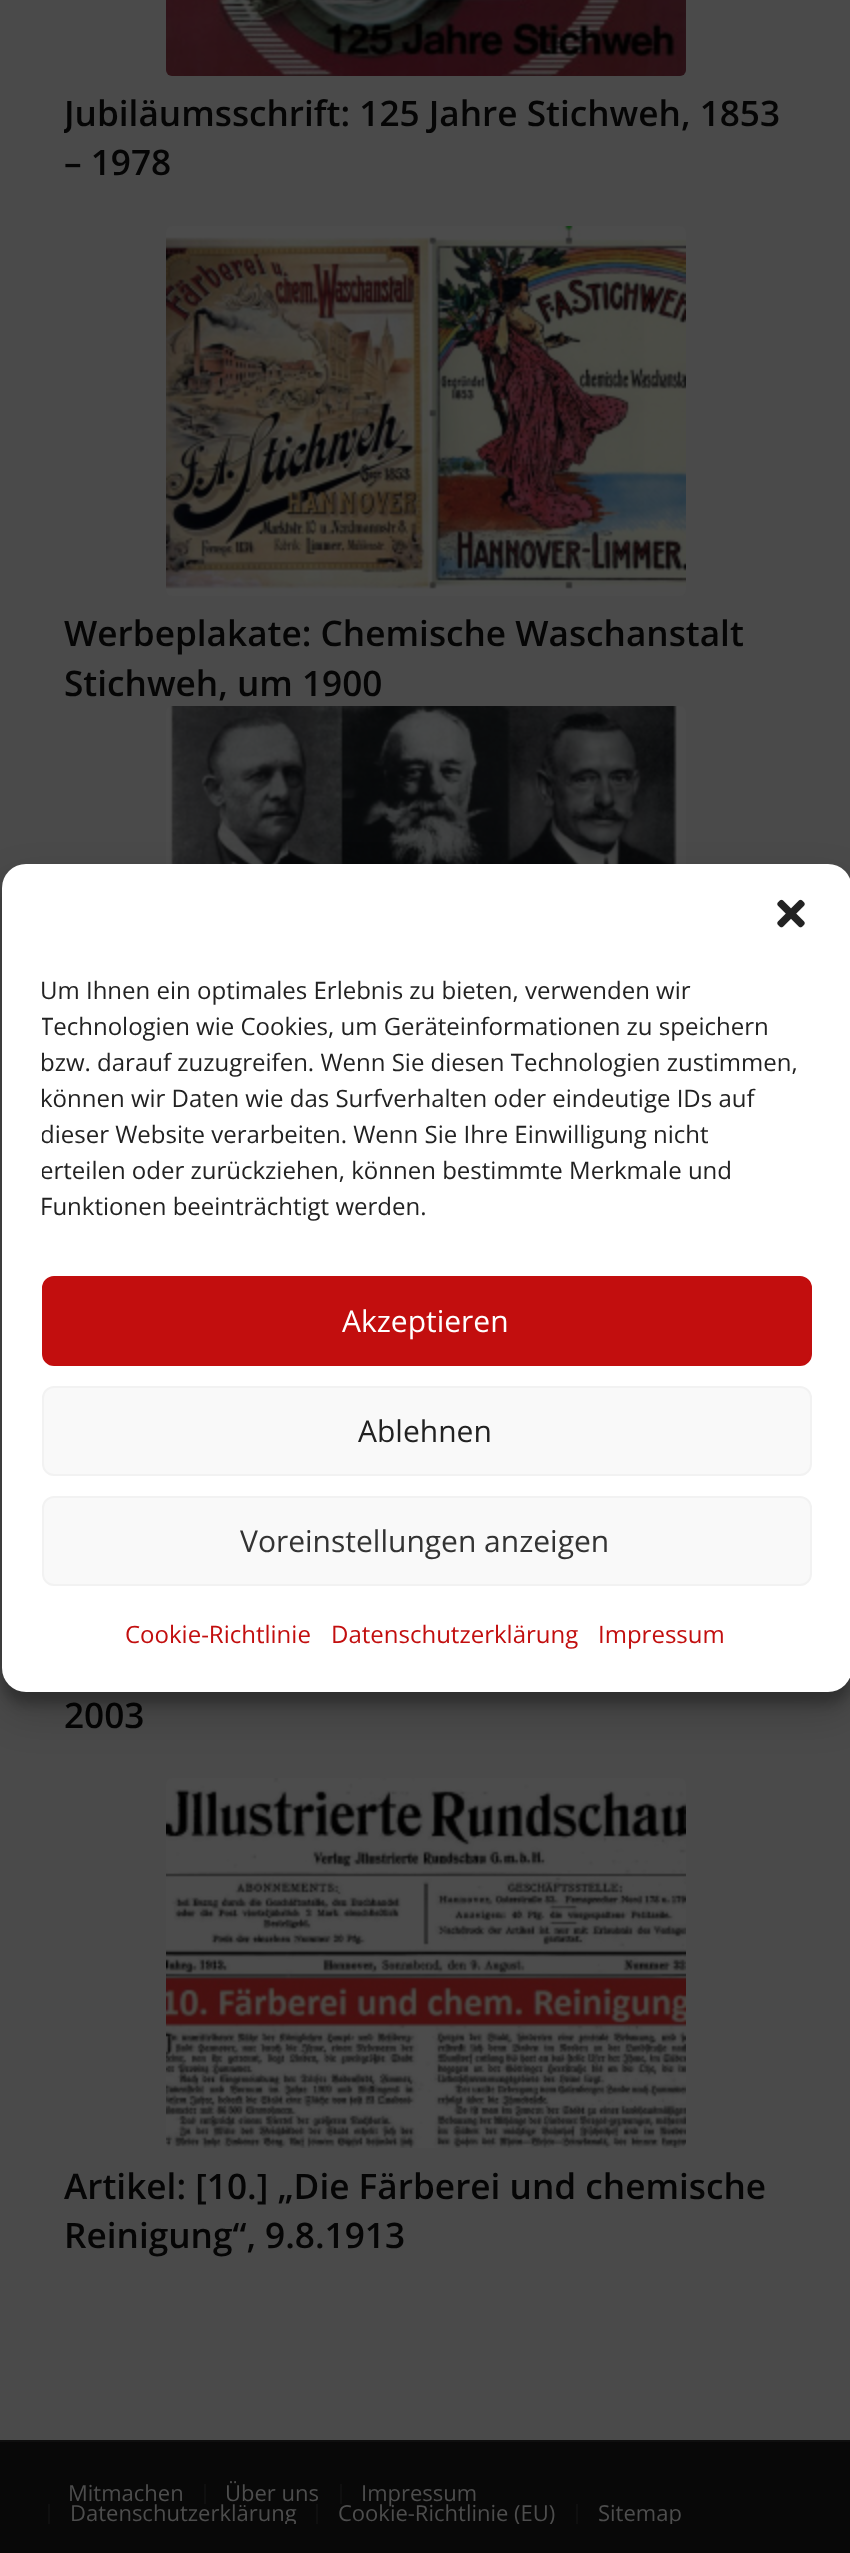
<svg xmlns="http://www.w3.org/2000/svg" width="850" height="2553">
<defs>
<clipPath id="clip1"><rect x="64" width="722" height="2340"/></clipPath>
<clipPath id="clip2"><rect x="34" y="2472" width="722" height="52"/></clipPath>
<clipPath id="clip3"><rect x="42" y="974" width="770" height="262"/></clipPath>
</defs>
<rect width="100%" height="100%" fill="#4a4a4a"/>
<image x="166" y="0" width="520" height="76" href="media/1.png"/>
<g clip-path="url(#clip1)">
<text x="64" y="126" style="font-family:Open Sans;font-size:35.2px;font-weight:600;fill:#050505">Jubiläumsschrift: 125 Jahre Stichweh, 1853</text>
</g>
<text x="64" y="175" style="font-family:Open Sans;font-size:35.2px;font-weight:600;fill:#050505">– 1978</text>
<image x="166" y="226" width="520" height="370" href="media/2.png"/>
<text x="64" y="646" style="font-family:Open Sans;font-size:35.2px;font-weight:600;fill:#050505">Werbeplakate: Chemische Waschanstalt</text>
<text x="64" y="696" style="font-family:Open Sans;font-size:35.2px;font-weight:600;fill:#050505">Stichweh, um 1900</text>
<image x="166" y="706" width="520" height="158" href="media/3.png"/>
<text x="64" y="1728" style="font-family:Open Sans;font-size:35.2px;font-weight:600;fill:#050505">2003</text>
<image x="166" y="1778" width="520" height="370" href="media/4.png"/>
<text x="64" y="2199" style="font-family:Open Sans;font-size:35.2px;font-weight:600;fill:#050505">Artikel: [10.] „Die Färberei und chemische</text>
<text x="64" y="2248" style="font-family:Open Sans;font-size:35.2px;font-weight:600;fill:#050505">Reinigung“, 9.8.1913</text>
<rect y="2442" width="850" height="111" fill="#080808"/>
<rect y="2440" width="850" height="2" fill="#0f0f0f"/>
<text x="68" y="2501" style="font-family:Open Sans;font-size:22px;fill:#4d4d4d">Mitmachen</text>
<rect x="204" y="2484" width="2" height="20" fill="#0f0f0f"/>
<text x="225" y="2501" style="font-family:Open Sans;font-size:22px;fill:#4d4d4d">Über uns</text>
<rect x="340" y="2484" width="2" height="20" fill="#0f0f0f"/>
<text x="361" y="2501" style="font-family:Open Sans;font-size:22px;fill:#4d4d4d">Impressum</text>
<rect x="48" y="2504" width="2" height="20" fill="#0f0f0f"/>
<g clip-path="url(#clip2)">
<text x="70" y="2521" style="font-family:Open Sans;font-size:22px;fill:#4d4d4d">Datenschutzerklärung</text>
</g>
<rect x="316" y="2504" width="2" height="20" fill="#0f0f0f"/>
<g clip-path="url(#clip2)">
<text x="338" y="2521" style="font-family:Open Sans;font-size:22px;fill:#4d4d4d">Cookie-Richtlinie (EU)</text>
</g>
<rect x="576" y="2504" width="2" height="20" fill="#0f0f0f"/>
<g clip-path="url(#clip2)">
<text x="598" y="2521" style="font-family:Open Sans;font-size:22px;fill:#4d4d4d">Sitemap</text>
</g>
<rect x="2" y="876" width="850" height="828" rx="24" fill="#0000003b" filter="blur(6px)"/>
<rect x="2" y="884" width="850" height="828" rx="24" fill="#00000030" filter="blur(20px)"/>
<rect x="2" y="864" width="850" height="828" rx="24" fill="#fff"/>
<image x="777" y="899" width="28" height="29" href="media/5.png"/>
<text x="40" y="999" style="font-family:Open Sans;font-size:24px;fill:#222">Um Ihnen ein optimales Erlebnis zu bieten, verwenden wir</text>
<g clip-path="url(#clip3)">
<text x="40" y="1035" style="font-family:Open Sans;font-size:24px;fill:#222">Technologien wie Cookies, um Geräteinformationen zu speichern</text>
</g>
<text x="40" y="1071" style="font-family:Open Sans;font-size:24px;fill:#222">bzw. darauf zuzugreifen. Wenn Sie diesen Technologien zustimmen,</text>
<text x="40" y="1107" style="font-family:Open Sans;font-size:24px;fill:#222">können wir Daten wie das Surfverhalten oder eindeutige IDs auf</text>
<g clip-path="url(#clip3)">
<text x="40" y="1143" style="font-family:Open Sans;font-size:24px;fill:#222">dieser Website verarbeiten. Wenn Sie Ihre Einwilligung nicht</text>
<text x="40" y="1179" style="font-family:Open Sans;font-size:24px;fill:#222">erteilen oder zurückziehen, können bestimmte Merkmale und</text>
</g>
<text x="40" y="1215" style="font-family:Open Sans;font-size:24px;fill:#222">Funktionen beeinträchtigt werden.</text>
<rect x="43" y="1277" width="768" height="88" rx="11" fill="#c20e0e" stroke="#c20e0e" stroke-width="2"/>
<text x="342" y="1332" style="font-family:Open Sans;font-size:30px;fill:#fff">Akzeptieren</text>
<rect x="43" y="1387" width="768" height="88" rx="11" fill="#f9f9f9" stroke="#f2f2f2" stroke-width="2"/>
<text x="358" y="1442" style="font-family:Open Sans;font-size:30px;fill:#222">Ablehnen</text>
<rect x="43" y="1497" width="768" height="88" rx="11" fill="#f9f9f9" stroke="#f2f2f2" stroke-width="2"/>
<text x="240" y="1552" style="font-family:Open Sans;font-size:30px;fill:#333">Voreinstellungen anzeigen</text>
<text x="125" y="1643" style="font-family:Open Sans;font-size:24px;fill:#c20e0e">Cookie-Richtlinie</text>
<text x="331" y="1643" style="font-family:Open Sans;font-size:24px;fill:#c20e0e">Datenschutzerklärung</text>
<text x="598" y="1643" style="font-family:Open Sans;font-size:24px;fill:#c20e0e">Impressum</text>
</svg>
